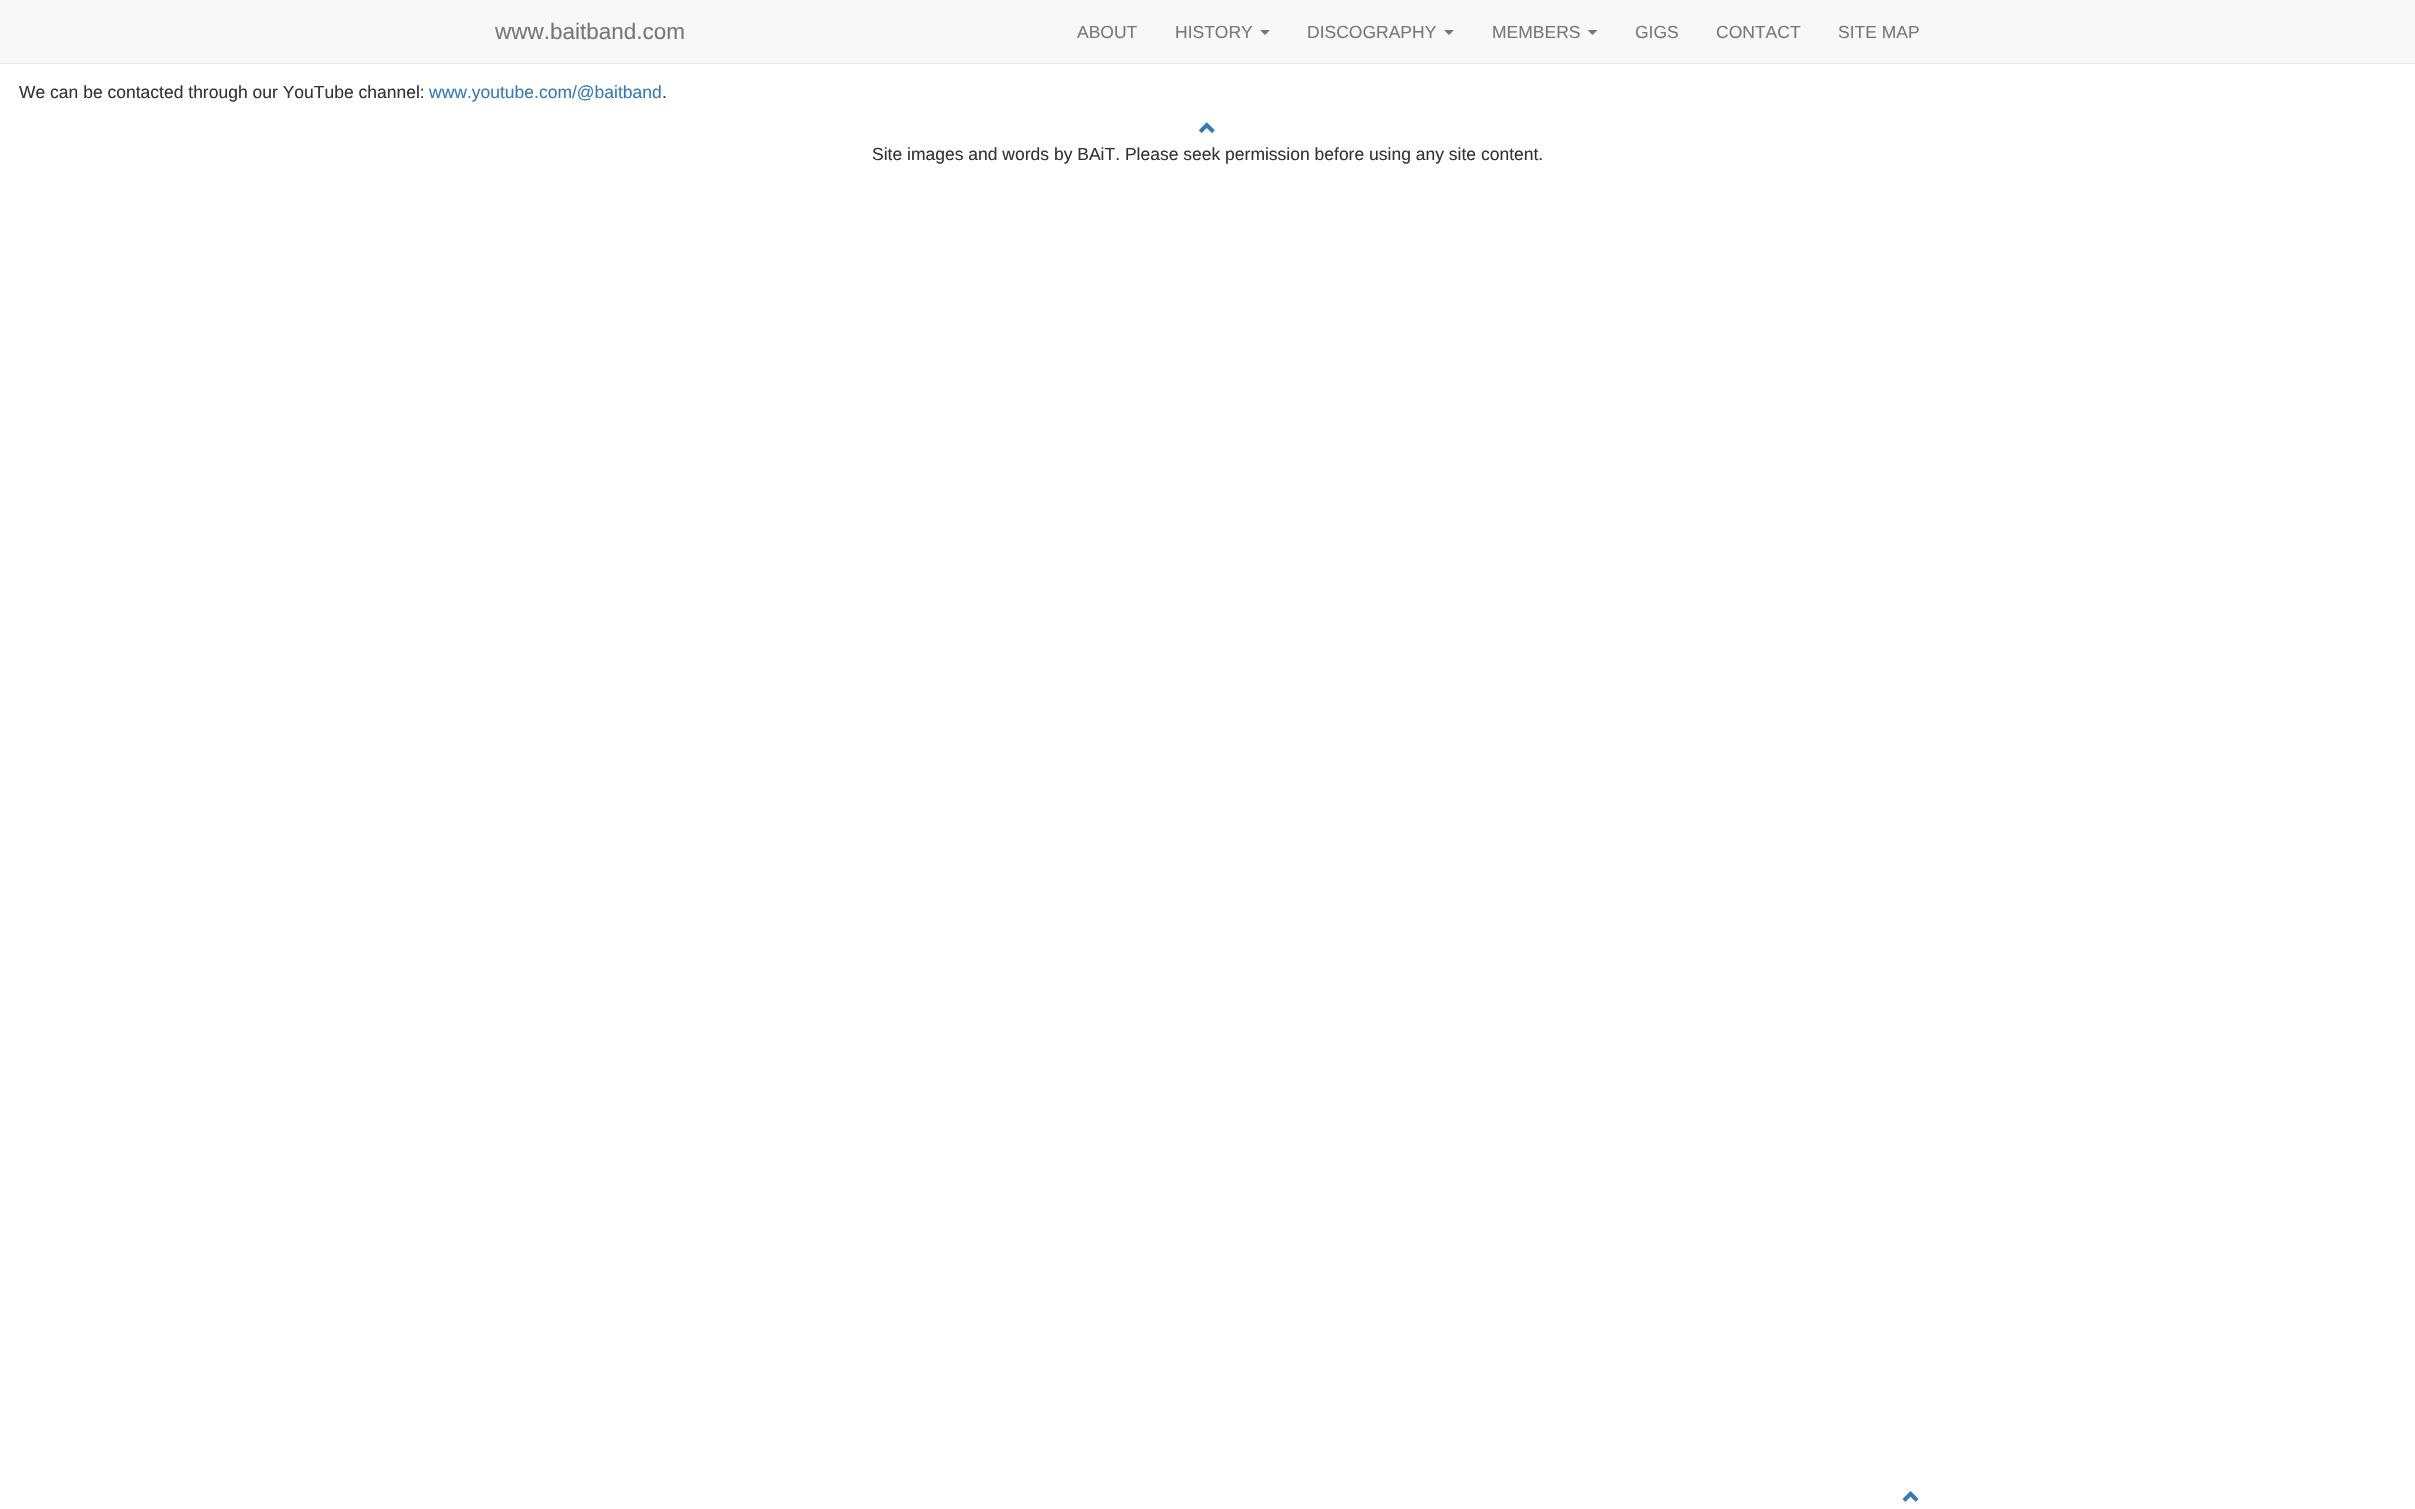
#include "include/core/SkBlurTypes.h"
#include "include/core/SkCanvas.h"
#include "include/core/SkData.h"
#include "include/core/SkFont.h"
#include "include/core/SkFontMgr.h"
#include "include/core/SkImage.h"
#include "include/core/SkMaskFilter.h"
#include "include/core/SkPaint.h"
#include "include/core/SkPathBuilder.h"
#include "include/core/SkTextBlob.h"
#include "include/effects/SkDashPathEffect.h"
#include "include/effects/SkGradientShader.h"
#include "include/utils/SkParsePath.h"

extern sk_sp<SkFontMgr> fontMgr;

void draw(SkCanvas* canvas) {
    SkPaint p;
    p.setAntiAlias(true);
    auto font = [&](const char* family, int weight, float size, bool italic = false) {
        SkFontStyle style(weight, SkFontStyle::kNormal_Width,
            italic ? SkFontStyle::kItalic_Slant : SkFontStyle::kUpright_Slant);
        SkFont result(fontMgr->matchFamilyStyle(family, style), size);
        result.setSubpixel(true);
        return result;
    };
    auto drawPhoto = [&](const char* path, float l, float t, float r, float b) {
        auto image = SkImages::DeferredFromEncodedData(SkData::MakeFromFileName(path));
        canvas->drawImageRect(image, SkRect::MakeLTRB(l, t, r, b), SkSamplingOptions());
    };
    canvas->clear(0xFFFFFFFF);
    p.setColor(0xFFF8F8F8);
    canvas->drawRect(SkRect::MakeLTRB(0, 0, 2415, 63), p);
    p.setColor(0xFFE7E7E7);
    canvas->drawRect(SkRect::MakeLTRB(0, 63, 2415, 64), p);
    auto font1 = font("Liberation Sans", 400, 22.5f);
    p.setColor(0xFF777777);
    canvas->drawString("www.baitband.com", 495, 39, font1, p);
    auto font2 = font("Liberation Sans", 400, 17.5f);
    canvas->drawString("ABOUT", 1077, 38, font2, p);
    canvas->drawString("HISTORY", 1175, 38, font2, p);
    canvas->drawPath(SkPathBuilder().moveTo(1260, 30).lineTo(1270, 30).lineTo(1265, 35).close().detach(), p);
    canvas->drawString("DISCOGRAPHY", 1307, 38, font2, p);
    canvas->drawPath(SkPathBuilder().moveTo(1444, 30).lineTo(1454, 30).lineTo(1449, 35).close().detach(), p);
    canvas->drawString("MEMBERS", 1492, 38, font2, p);
    canvas->drawPath(SkPathBuilder().moveTo(1587.5f, 30).lineTo(1597.5f, 30).lineTo(1592.5f, 35).close().detach(), p);
    {
        const struct { const char* s; float x, y; } items[] = {
            {"GIGS", 1635, 38},
            {"CONTACT", 1716, 38},
            {"SITE MAP", 1838, 38},
        };
        for (auto [s, x, y] : items) {
            canvas->drawString(s, x, y, font2, p);
        }
    }
    p.setColor(0xFF333333);
    canvas->drawString("We can be contacted through our YouTube channel:", 19, 98, font2, p);
    p.setColor(0xFF337AB7);
    canvas->drawString("www.youtube.com/@baitband", 429, 98, font2, p);
    p.setColor(0xFF333333);
    canvas->drawString(".", 662, 98, font2, p);
    drawPhoto("media/1.png", 1198, 122, 1215, 134);
    canvas->drawString("Site images and words by BAiT. Please seek permission before using any site content.", 872, 160, font2, p);
    drawPhoto("media/2.png", 1902, 1491, 1919, 1502);
}
